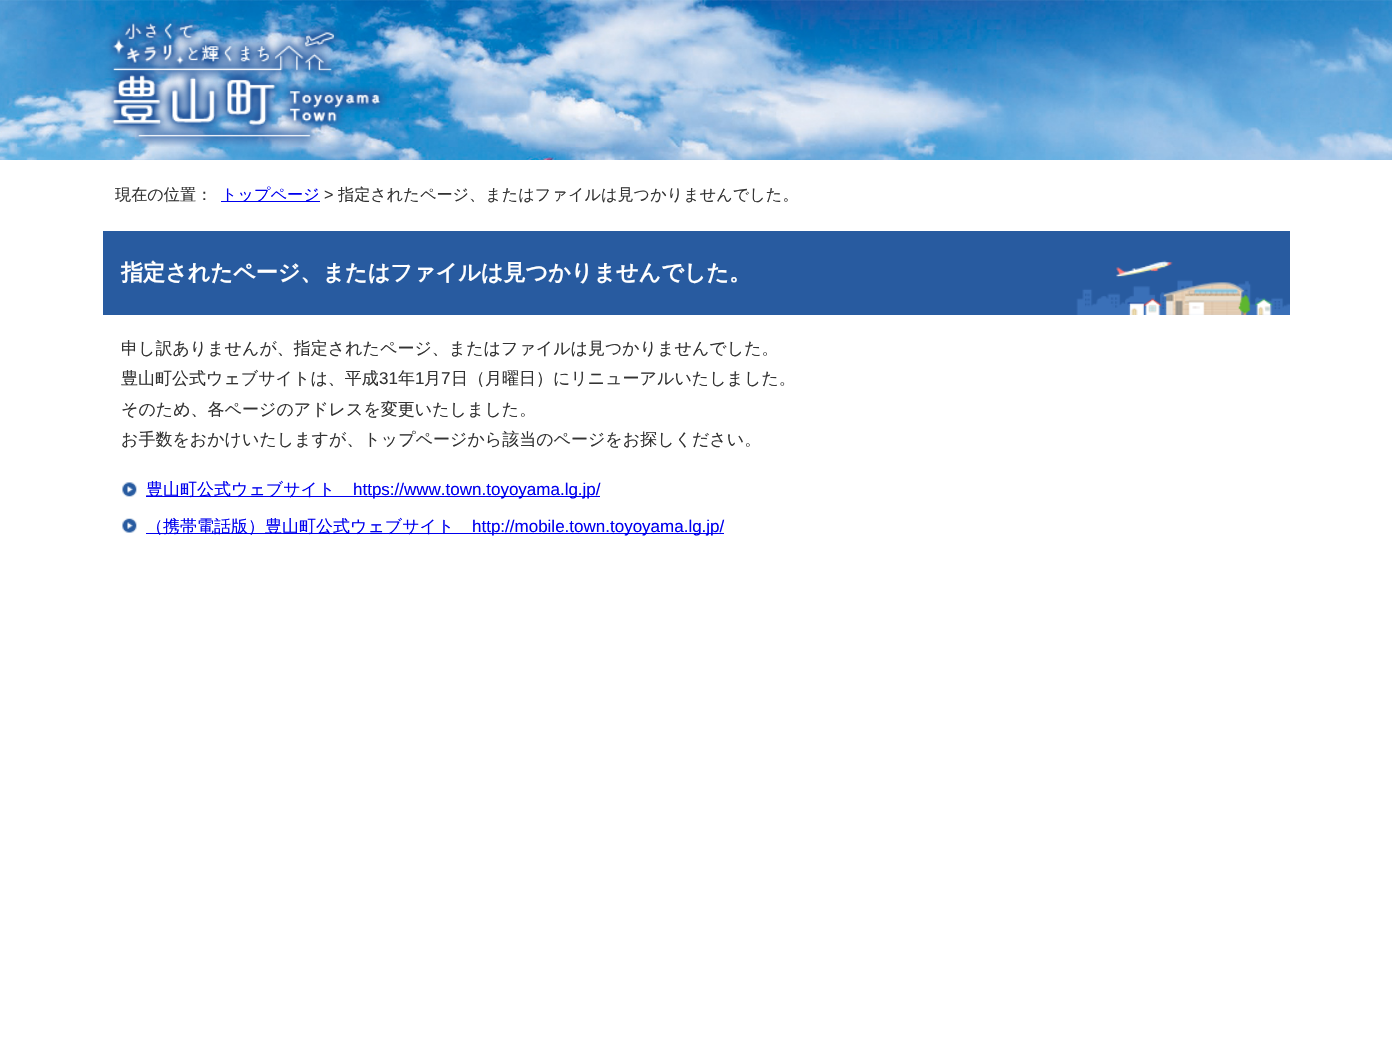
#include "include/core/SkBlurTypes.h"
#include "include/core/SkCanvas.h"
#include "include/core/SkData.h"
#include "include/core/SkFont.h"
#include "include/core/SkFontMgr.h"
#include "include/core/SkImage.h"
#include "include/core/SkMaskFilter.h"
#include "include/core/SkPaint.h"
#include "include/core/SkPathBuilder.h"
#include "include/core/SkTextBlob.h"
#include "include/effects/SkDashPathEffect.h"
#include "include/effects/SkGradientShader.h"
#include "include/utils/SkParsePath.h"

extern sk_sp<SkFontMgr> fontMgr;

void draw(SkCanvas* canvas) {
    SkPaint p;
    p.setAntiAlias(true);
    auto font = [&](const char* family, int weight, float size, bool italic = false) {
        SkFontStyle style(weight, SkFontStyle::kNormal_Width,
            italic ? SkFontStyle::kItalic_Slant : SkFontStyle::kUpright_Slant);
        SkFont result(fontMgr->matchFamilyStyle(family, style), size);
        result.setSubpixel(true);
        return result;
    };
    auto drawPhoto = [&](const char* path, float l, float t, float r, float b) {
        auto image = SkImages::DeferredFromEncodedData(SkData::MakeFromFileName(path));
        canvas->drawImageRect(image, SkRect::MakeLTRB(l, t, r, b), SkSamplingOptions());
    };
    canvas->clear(0xFFFFFFFF);
    drawPhoto("media/1.png", 0, 0, 1392, 160);
    drawPhoto("media/2.png", 104, 17, 387, 147);
    auto font1 = font("WenQuanYi Zen Hei", 500, 16.15f);
    p.setColor(0xFF333333);
    canvas->drawString("現在の位置：", 115, 200, font1, p);
    p.setColor(0xFF0000EE);
    canvas->drawRect(SkRect::MakeLTRB(221, 201, 320, 202), p);
    canvas->drawString("トップページ", 221, 200, font1, p);
    auto font2 = font("Liberation Sans", 400, 16.15f);
    p.setColor(0xFF333333);
    canvas->drawString(">", 324, 200, font2, p);
    canvas->drawString("指定されたページ、またはファイルは見つかりませんでした。", 338, 200, font1, p);
    p.setColor(0xFF285BA0);
    canvas->drawRect(SkRect::MakeLTRB(103, 231, 1290, 315), p);
    drawPhoto("media/3.png", 1076, 260, 1290, 315);
    auto font3 = font("WenQuanYi Zen Hei", 700, 22.1f);
    p.setColor(0xFFFFFFFF);
    canvas->drawString("指定されたページ、またはファイルは見つかりませんでした。", 121, 280, font3, p);
    auto font4 = font("WenQuanYi Zen Hei", 500, 17);
    p.setColor(0xFF333333);
    canvas->drawString("申し訳ありませんが、指定されたページ、またはファイルは見つかりませんでした。", 121, 354, font4, p);
    canvas->drawString("豊山町公式ウェブサイトは、平成", 121, 384, font4, p);
    auto font5 = font("Liberation Sans", 400, 17);
    canvas->drawString("31", 379, 384, font5, p);
    canvas->drawString("年", 398, 384, font4, p);
    canvas->drawString("1", 415, 384, font5, p);
    canvas->drawString("月", 424, 384, font4, p);
    canvas->drawString("7", 441, 384, font5, p);
    {
        const struct { const char* s; float x, y; } items[] = {
            {"日（月曜日）にリニューアルいたしました。", 451, 384},
            {"そのため、各ページのアドレスを変更いたしました。", 121, 415},
            {"お手数をおかけいたしますが、トップページから該当のページをお探しください。", 121, 445},
        };
        for (auto [s, x, y] : items) {
            canvas->drawString(s, x, y, font4, p);
        }
    }
    drawPhoto("media/4.png", 122, 482, 137, 497);
    p.setColor(0xFF0000EE);
    canvas->drawRect(SkRect::MakeLTRB(146, 496, 600, 497), p);
    canvas->drawString("豊山町公式ウェブサイト", 146, 495, font4, p);
    canvas->drawString("https://www.town.toyoyama.lg.jp/", 353, 495, font5, p);
    drawPhoto("media/5.png", 122, 518, 137, 533);
    canvas->drawRect(SkRect::MakeLTRB(146, 533, 724, 534), p);
    canvas->drawString("（携帯電話版）豊山町公式ウェブサイト", 146, 532, font4, p);
    canvas->drawString("http://mobile.town.toyoyama.lg.jp/", 472, 532, font5, p);
}
